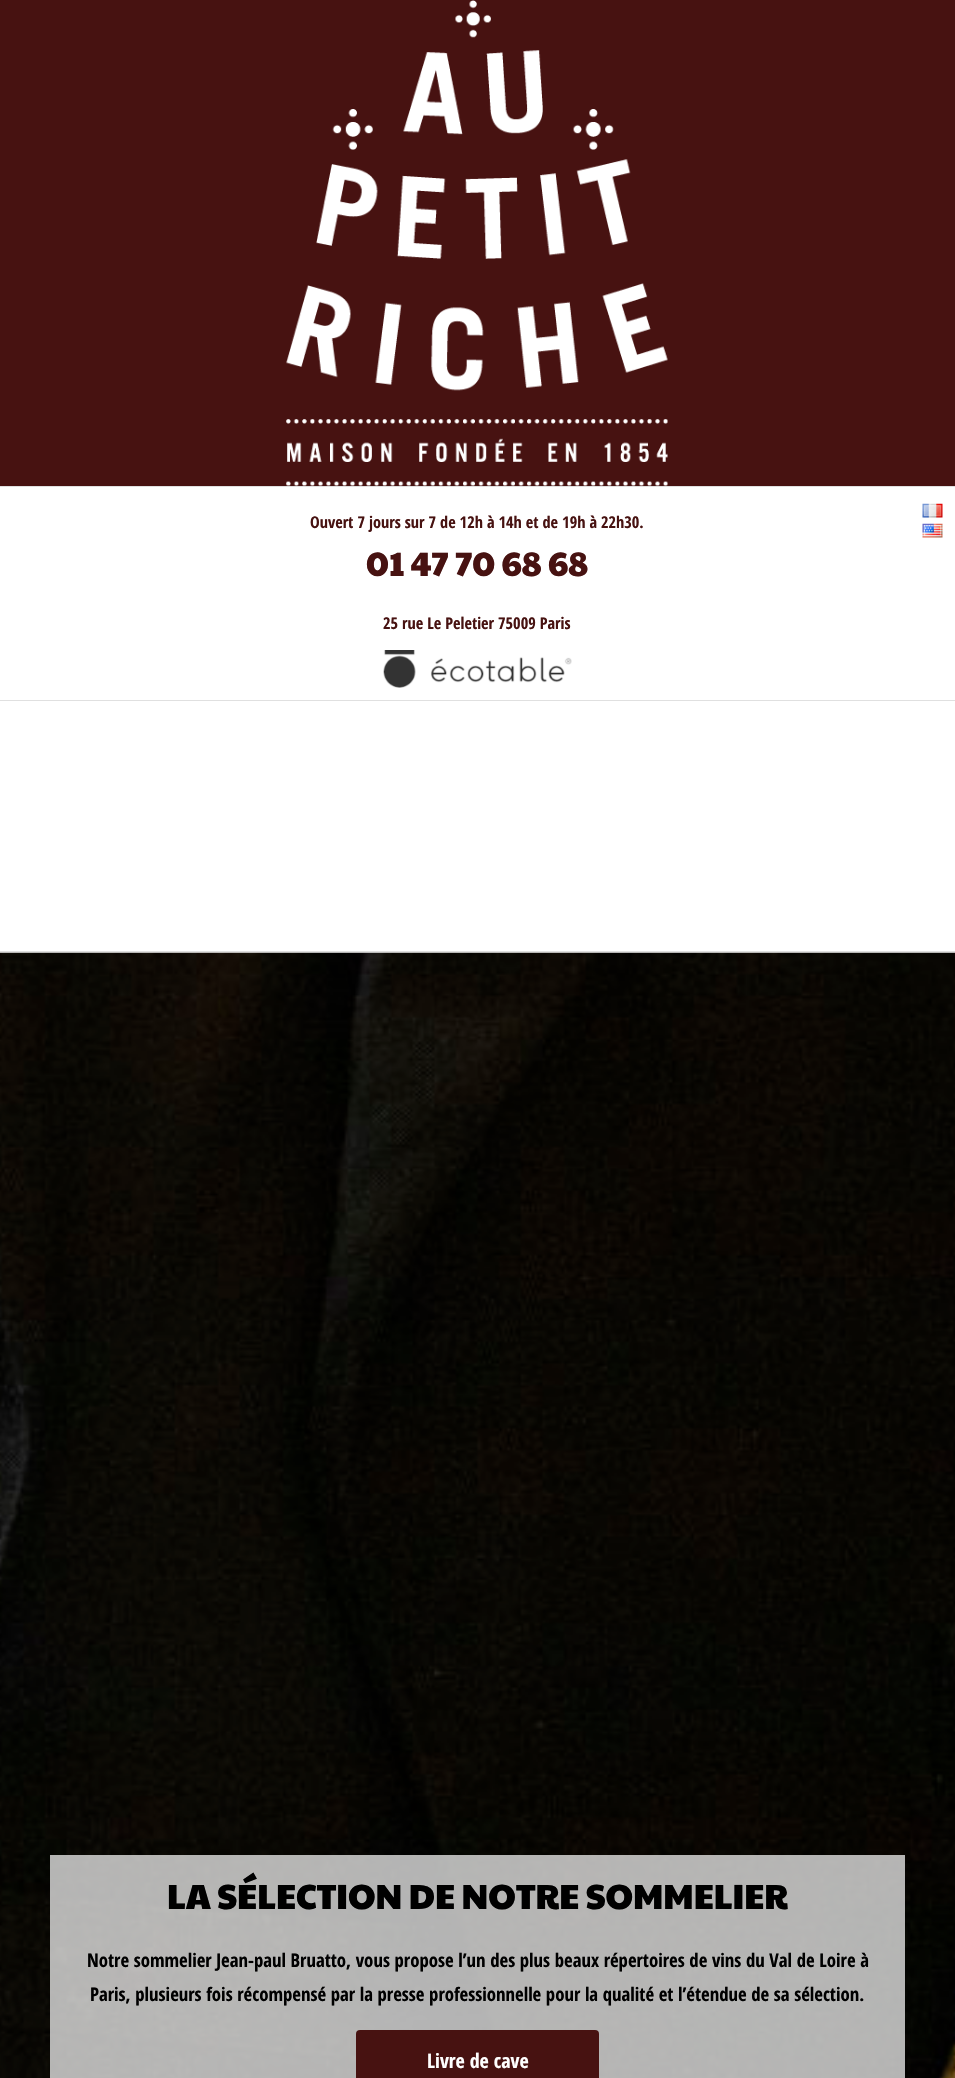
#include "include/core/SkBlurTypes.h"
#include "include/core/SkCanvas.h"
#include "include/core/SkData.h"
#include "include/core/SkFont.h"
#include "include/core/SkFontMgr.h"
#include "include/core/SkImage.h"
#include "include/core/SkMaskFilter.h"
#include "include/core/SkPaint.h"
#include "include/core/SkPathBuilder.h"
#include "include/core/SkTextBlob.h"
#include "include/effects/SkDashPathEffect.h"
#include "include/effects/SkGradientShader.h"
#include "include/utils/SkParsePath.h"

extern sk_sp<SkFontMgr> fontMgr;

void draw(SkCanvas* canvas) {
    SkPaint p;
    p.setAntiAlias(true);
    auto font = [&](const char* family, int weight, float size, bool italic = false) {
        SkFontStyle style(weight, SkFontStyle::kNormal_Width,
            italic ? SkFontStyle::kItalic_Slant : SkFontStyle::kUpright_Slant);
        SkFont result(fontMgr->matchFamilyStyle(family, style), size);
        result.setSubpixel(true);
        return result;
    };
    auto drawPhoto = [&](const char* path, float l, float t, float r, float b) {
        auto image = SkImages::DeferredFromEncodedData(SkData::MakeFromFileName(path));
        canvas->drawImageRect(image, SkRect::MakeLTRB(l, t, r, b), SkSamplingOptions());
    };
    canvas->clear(0xFFFFFFFF);
    drawPhoto("media/5.png", 0, 952, 955, 2078);
    p.setColor(0x6BFFFFFF);
    canvas->drawRect(SkRect::MakeLTRB(0, 952, 955, 953), p);
    p.setColor(0xFF471211);
    canvas->drawRect(SkRect::MakeLTRB(0, 0, 955, 486), p);
    drawPhoto("media/1.png", 286, 0, 668, 486);
    p.setColor(0xFFE0E0E0);
    canvas->drawRect(SkRect::MakeLTRB(0, 486, 955, 487), p);
    auto font1 = font("Open Sans Condensed", 700, 16.25f);
    p.setColor(0xFF471211);
    canvas->drawString("Ouvert 7 jours sur 7 de 12h à 14h et de 19h à 22h30.", 310, 528, font1, p);
    auto font2 = font("Paytone One", 400, 33.75f);
    canvas->drawString("01 47 70 68 68", 366, 576, font2, p);
    canvas->drawString("25 rue Le Peletier 75009 Paris", 383, 629, font1, p);
    drawPhoto("media/2.png", 383, 650, 572, 688);
    drawPhoto("media/3.png", 922, 503, 943, 518);
    drawPhoto("media/4.png", 922, 523, 943, 538);
    {
        const struct { float l, t, r, b; SkColor color; } items[] = {
            {0, 700, 955, 701, 0xFFE0E0E0},
            {0, 951, 955, 952, 0xFFE0E0E0},
            {50, 1855, 905, 2078, 0xB3FFFFFF},
        };
        for (auto [l, t, r, b, color] : items) {
            p.setColor(color);
            canvas->drawRect(SkRect::MakeLTRB(l, t, r, b), p);
        }
    }
    auto font3 = font("Paytone One", 400, 35);
    p.setColor(0xFF000000);
    canvas->drawString("LA SÉLECTION DE NOTRE SOMMELIER", 167, 1909, font3, p);
    auto font4 = font("Open Sans Condensed", 700, 18.75f);
    canvas->drawString("Notre sommelier Jean-paul Bruatto, vous propose l’un des plus beaux répertoires de vins du Val de Loire à", 87, 1967, font4, p);
    canvas->drawString("Paris, plusieurs fois récompensé par la presse professionnelle pour la qualité et l’étendue de sa sélection.", 90, 2001, font4, p);
    p.setColor(0xFF471211);
    canvas->drawRoundRect(SkRect::MakeLTRB(356, 2030, 599, 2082), 4, 4, p);
    auto font5 = font("Open Sans Condensed", 700, 20);
    p.setColor(0xFFFFFFFF);
    canvas->drawString("Livre de cave", 427, 2068, font5, p);
}
